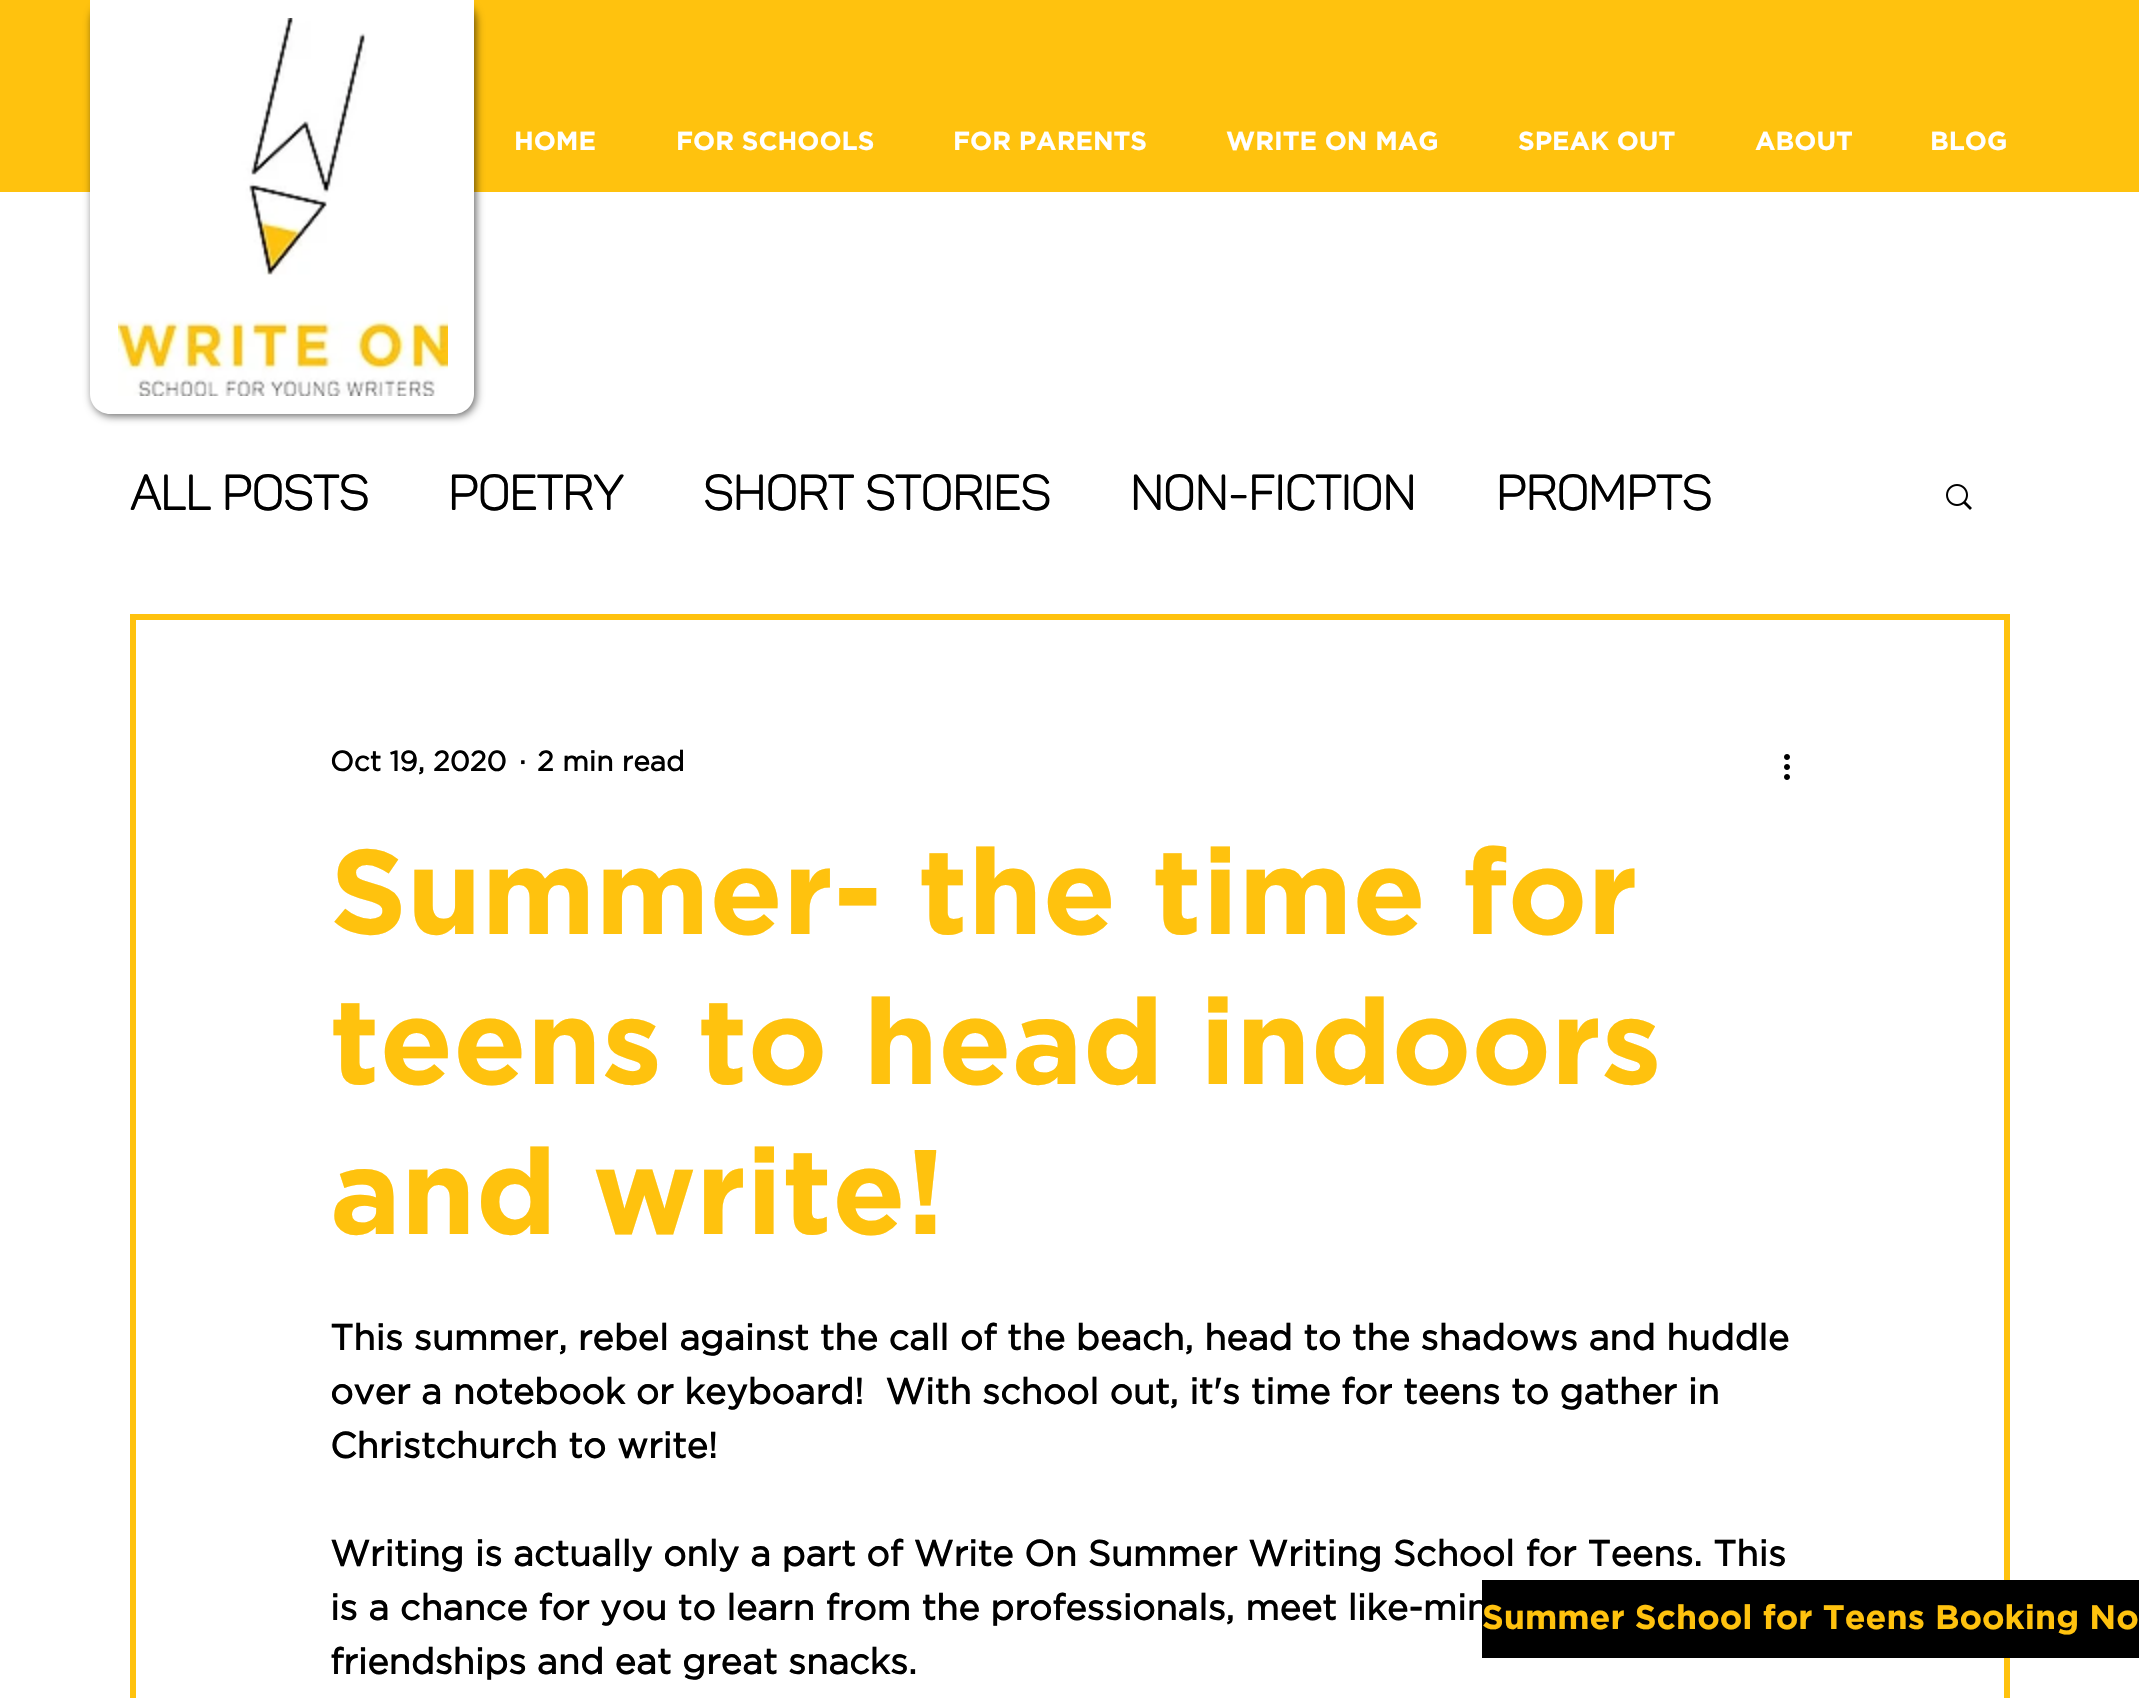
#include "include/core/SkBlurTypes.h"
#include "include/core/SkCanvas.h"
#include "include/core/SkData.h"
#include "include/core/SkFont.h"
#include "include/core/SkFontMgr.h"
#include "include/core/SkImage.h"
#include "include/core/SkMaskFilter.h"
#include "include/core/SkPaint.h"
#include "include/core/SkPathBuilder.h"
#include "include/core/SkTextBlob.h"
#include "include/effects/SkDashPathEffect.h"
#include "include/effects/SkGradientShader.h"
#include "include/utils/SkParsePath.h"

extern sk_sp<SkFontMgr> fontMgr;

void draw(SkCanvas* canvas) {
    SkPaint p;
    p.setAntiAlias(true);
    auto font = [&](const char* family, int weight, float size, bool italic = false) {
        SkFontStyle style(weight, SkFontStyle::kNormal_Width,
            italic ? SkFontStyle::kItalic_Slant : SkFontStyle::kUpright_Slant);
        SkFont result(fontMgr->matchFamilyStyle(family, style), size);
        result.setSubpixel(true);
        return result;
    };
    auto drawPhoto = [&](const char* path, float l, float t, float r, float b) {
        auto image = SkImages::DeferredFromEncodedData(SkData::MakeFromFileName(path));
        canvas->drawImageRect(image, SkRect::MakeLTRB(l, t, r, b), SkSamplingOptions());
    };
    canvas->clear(0xFFFFFFFF);
    p.setColor(0xFFFFC20E);
    canvas->drawRect(SkRect::MakeLTRB(0, 0, 2139, 192), p);
    p.setColor(0x99000000);
    p.setMaskFilter(SkMaskFilter::MakeBlur(kNormal_SkBlurStyle, 4));
    canvas->drawRoundRect(SkRect::MakeLTRB(92, 2, 476, 416), 20, 20, p);
    p.setMaskFilter(nullptr);
    p.setColor(0xFFFFFFFF);
    canvas->drawPath(SkPathBuilder().moveTo(90, 0).lineTo(474, 0).lineTo(474, 394).cubicTo(474, 405, 465, 414, 454, 414).lineTo(110, 414).cubicTo(99, 414, 90, 405, 90, 394).close().detach(), p);
    drawPhoto("media/1.png", 118, 18, 448, 396);
    auto font1 = font("Gotham", 700, 26);
    {
        const struct { const char* s; float x, y; } items[] = {
            {"HOME", 514, 150},
            {"FOR SCHOOLS", 676, 150},
            {"FOR PARENTS", 953, 150},
            {"WRITE ON MAG", 1226, 150},
            {"SPEAK OUT", 1518, 150},
            {"ABOUT", 1755, 150},
            {"BLOG", 1930, 150},
        };
        for (auto [s, x, y] : items) {
            canvas->drawString(s, x, y, font1, p);
        }
    }
    auto font2 = font("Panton", 700, 48);
    p.setColor(0xFF000000);
    {
        const struct { const char* s; float x, y; } items[] = {
            {"All Posts", 130, 510},
            {"Poetry", 448, 510},
            {"Short Stories", 703, 510},
            {"Non-fiction", 1130, 510},
            {"Prompts", 1496, 510},
        };
        for (auto [s, x, y] : items) {
            canvas->drawString(s, x, y, font2, p);
        }
    }
    drawPhoto("media/2.png", 1946, 484, 1972, 510);
    p.setStyle(SkPaint::kStroke_Style);
    p.setStrokeWidth(6);
    p.setColor(0xFFFFC20E);
    canvas->drawRect(SkRect::MakeLTRB(133, 617, 2007, 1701), p);
    auto font3 = font("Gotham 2", 700, 28);
    p.setStyle(SkPaint::kFill_Style);
    p.setColor(0xFF000000);
    {
        const struct { const char* s; float x, y; } items[] = {
            {"Oct 19, 2020", 330, 771},
            {"·", 519, 771},
            {"2 min read", 537, 771},
        };
        for (auto [s, x, y] : items) {
            canvas->drawString(s, x, y, font3, p);
        }
    }
    drawPhoto("media/3.png", 1784, 754, 1790, 780);
    auto font4 = font("Gotham", 700, 120);
    p.setColor(0xFFFFC20E);
    {
        const struct { const char* s; float x, y; } items[] = {
            {"Summer- the time for", 330, 934},
            {"teens to head indoors", 330, 1084},
            {"and write!", 330, 1234},
        };
        for (auto [s, x, y] : items) {
            canvas->drawString(s, x, y, font4, p);
        }
    }
    auto font5 = font("Gotham 2", 700, 36);
    p.setColor(0xFF000000);
    {
        const struct { const char* s; float x, y; } items[] = {
            {"This summer, rebel against the call of the beach, head to the shadows and huddle", 330, 1350},
            {"over a notebook or keyboard!  With school out, it's time for teens to gather in", 330, 1404},
            {"Christchurch to write!", 330, 1458},
            {"Writing is actually only a part of Write On Summer Writing School for Teens. This", 330, 1566},
            {"is a chance for you to learn from the professionals, meet like-min", 330, 1620},
            {"friendships and eat great snacks.", 330, 1674},
        };
        for (auto [s, x, y] : items) {
            canvas->drawString(s, x, y, font5, p);
        }
    }
    canvas->drawRect(SkRect::MakeLTRB(1482, 1580, 2139, 1658), p);
    auto font6 = font("Gotham", 700, 34);
    p.setColor(0xFFFFC20E);
    canvas->drawString("Summer School for Teens Booking No", 1482, 1629, font6, p);
}
